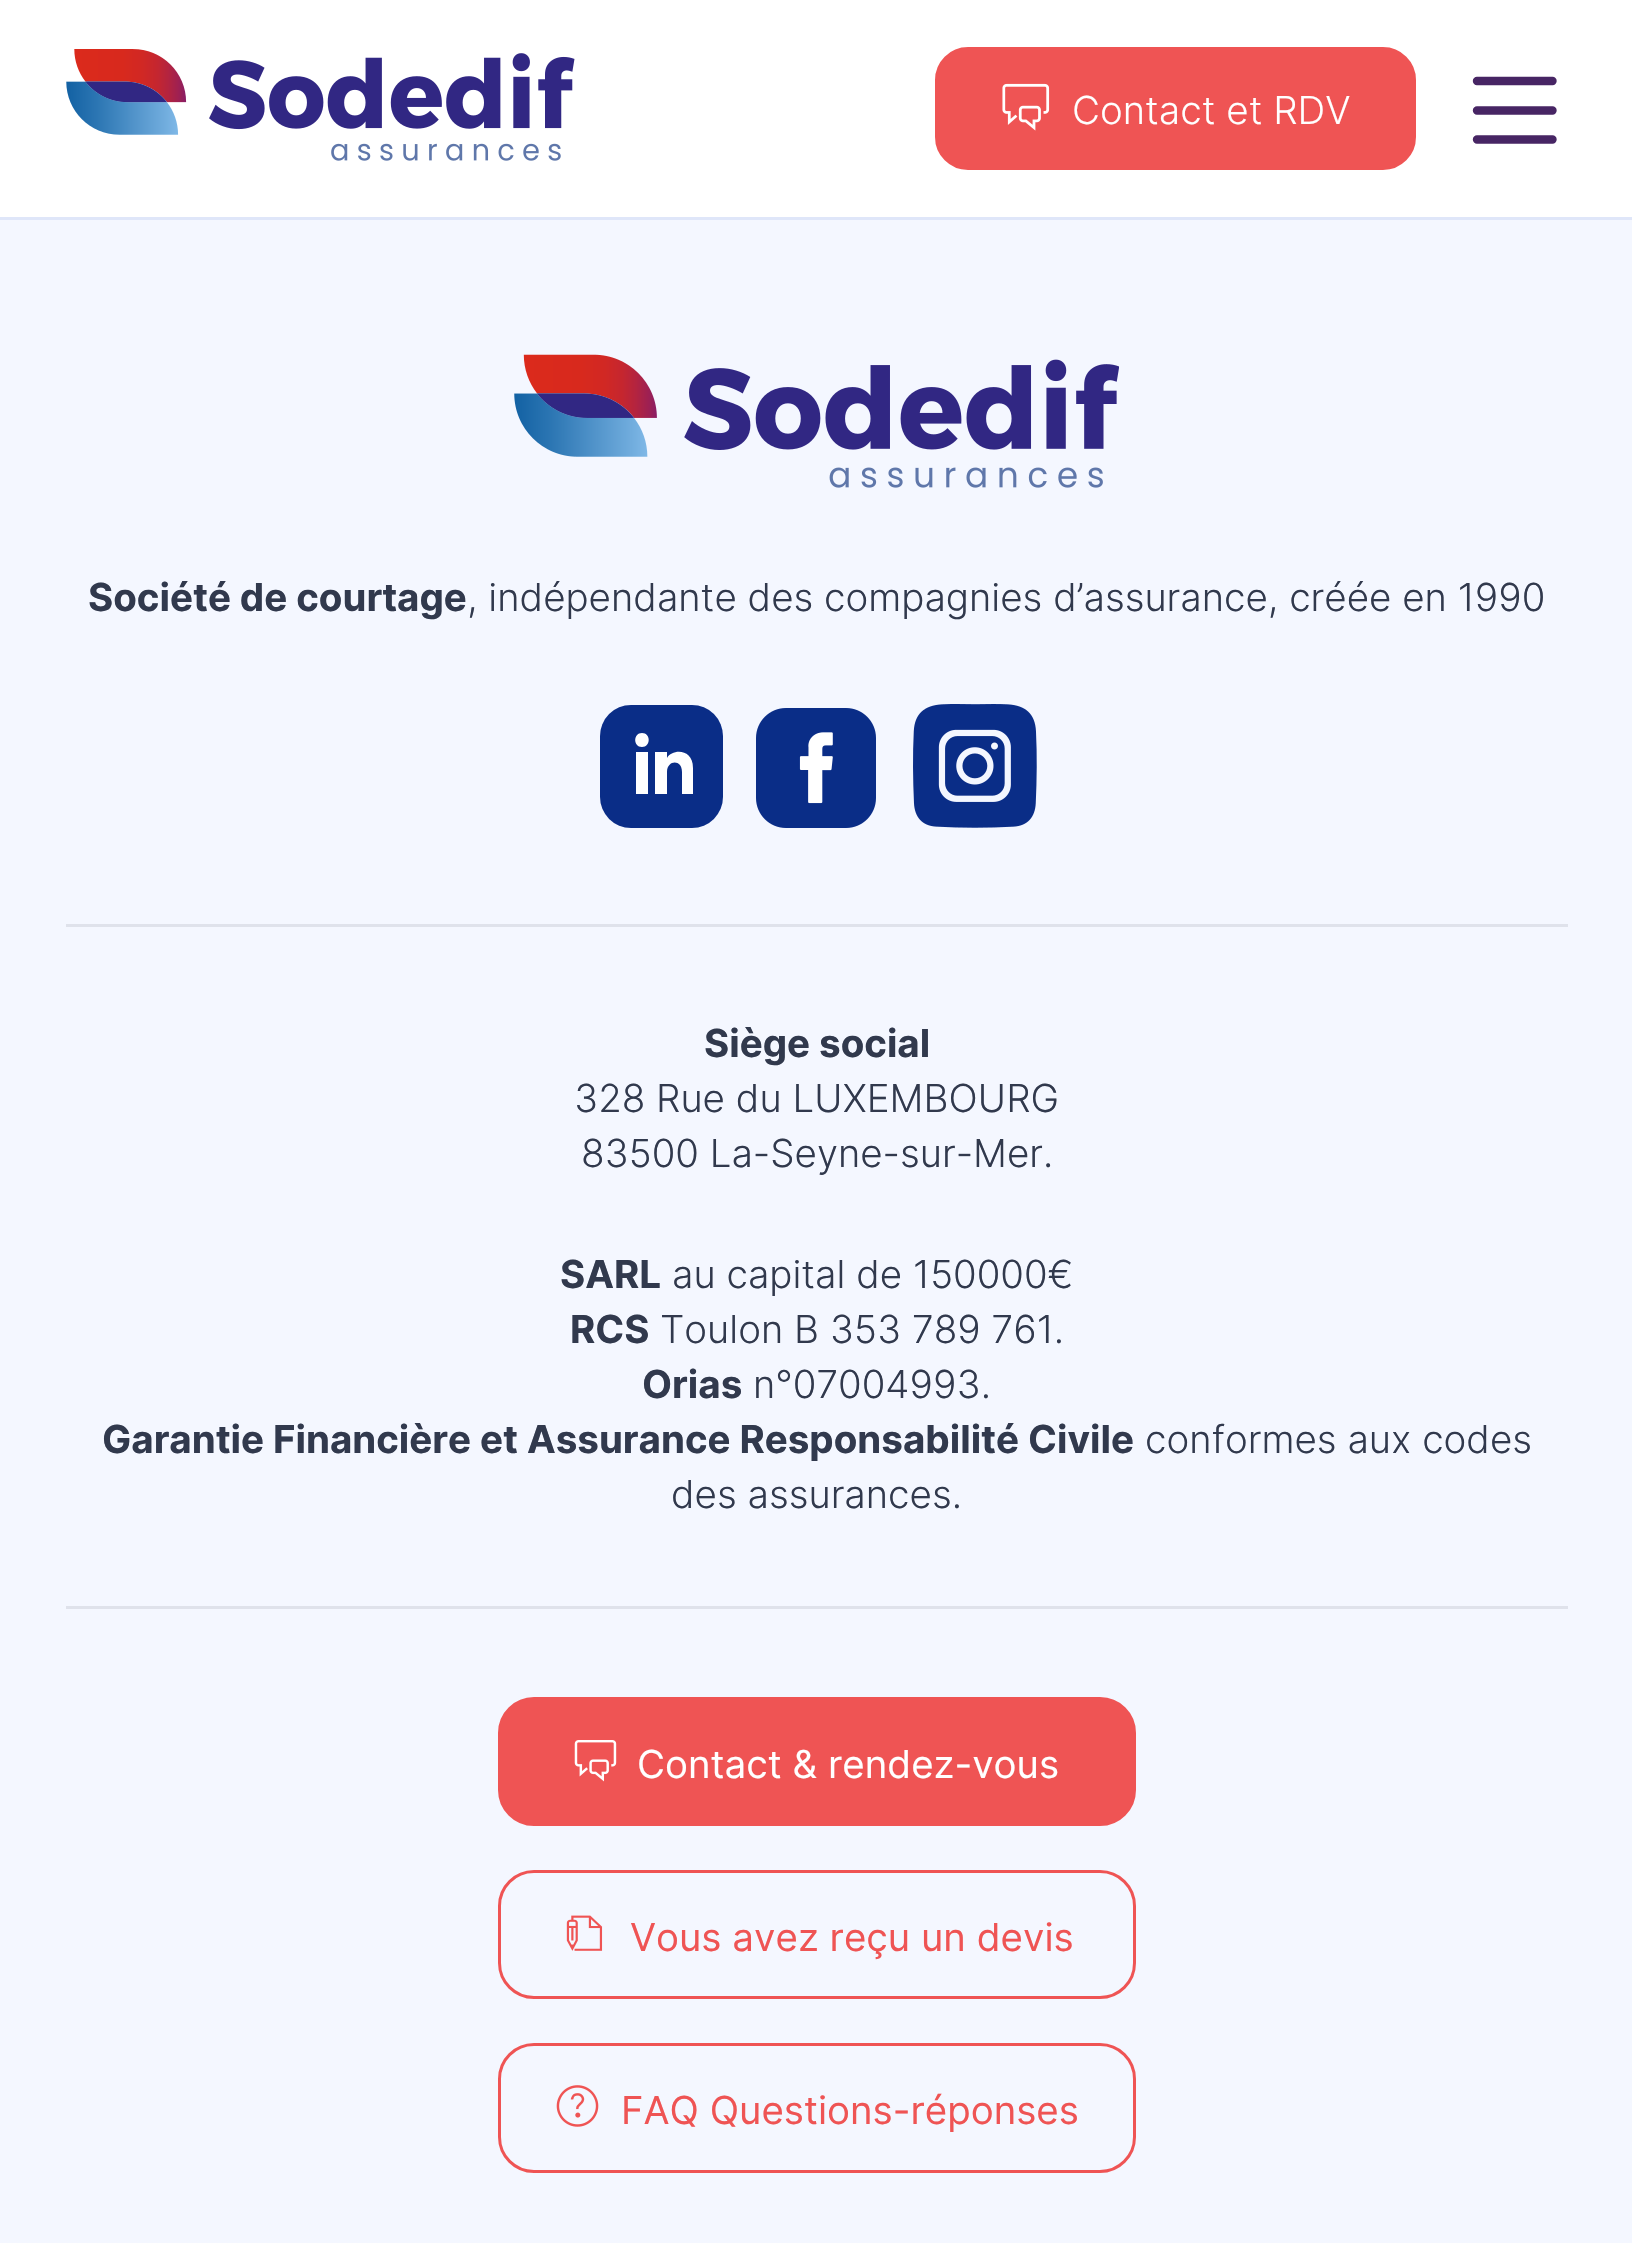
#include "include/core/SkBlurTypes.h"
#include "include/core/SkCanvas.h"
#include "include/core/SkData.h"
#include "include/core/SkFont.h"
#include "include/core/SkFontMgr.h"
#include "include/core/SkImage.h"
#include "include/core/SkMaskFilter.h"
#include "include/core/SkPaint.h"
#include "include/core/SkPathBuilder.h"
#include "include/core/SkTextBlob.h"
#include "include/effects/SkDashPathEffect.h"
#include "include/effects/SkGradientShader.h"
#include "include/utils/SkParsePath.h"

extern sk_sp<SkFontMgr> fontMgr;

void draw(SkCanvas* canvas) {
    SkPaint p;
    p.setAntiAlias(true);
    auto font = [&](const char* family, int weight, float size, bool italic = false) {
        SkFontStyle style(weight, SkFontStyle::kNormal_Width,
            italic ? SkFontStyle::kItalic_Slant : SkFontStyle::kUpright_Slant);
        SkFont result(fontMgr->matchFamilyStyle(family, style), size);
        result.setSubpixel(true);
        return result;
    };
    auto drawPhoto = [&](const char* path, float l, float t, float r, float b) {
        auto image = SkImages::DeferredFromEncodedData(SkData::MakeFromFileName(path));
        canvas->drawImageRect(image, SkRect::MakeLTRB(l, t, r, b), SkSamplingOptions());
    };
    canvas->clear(0xFFFFFFFF);
    p.setColor(0xFFDFE6F9);
    canvas->drawRect(SkRect::MakeLTRB(0, 217, 1632, 220), p);
    drawPhoto("media/1.png", 66, 49, 575, 161);
    p.setColor(0xFFEF5454);
    canvas->drawRoundRect(SkRect::MakeLTRB(933.5f, 45.5f, 1417.5f, 171.5f), 34.5f, 34.5f, p);
    p.setStyle(SkPaint::kStroke_Style);
    p.setStrokeWidth(3);
    p.setColor(0xFFFFFFFF);
    canvas->drawRoundRect(SkRect::MakeLTRB(933.5f, 45.5f, 1417.5f, 171.5f), 34.5f, 34.5f, p);
    drawPhoto("media/2.png", 1002, 83, 1050, 131);
    auto font1 = font("Inter", 300, 38.5f);
    p.setStyle(SkPaint::kFill_Style);
    canvas->drawString("Contact et RDV", 1072, 124, font1, p);
    p.setStyle(SkPaint::kStroke_Style);
    p.setStrokeWidth(8.4f);
    p.setStrokeCap(SkPaint::kRound_Cap);
    p.setStrokeJoin(SkPaint::kRound_Join);
    p.setColor(0xFF472564);
    canvas->drawPath(SkPathBuilder().moveTo(1477, 81).lineTo(1552.5f, 81).moveTo(1477, 110.5f).lineTo(1552.5f, 110.5f).moveTo(1477, 139.5f).lineTo(1552.5f, 139.5f).detach(), p);
    p.setStyle(SkPaint::kFill_Style);
    p.setColor(0xFFF4F7FF);
    canvas->drawRect(SkRect::MakeLTRB(0, 220, 1632, 2243), p);
    drawPhoto("media/3.png", 514, 354, 1119, 488);
    auto font2 = font("Inter", 700, 38.5f);
    p.setColor(0xFF31394D);
    canvas->drawString("Société de courtage", 88, 611, font2, p);
    canvas->drawString(", indépendante des compagnies d’assurance, créée en 1990", 467, 611, font1, p);
    p.setColor(0xFF0A2D87);
    canvas->drawRoundRect(SkRect::MakeLTRB(600, 705, 723, 828), 31, 31, p);
    p.setColor(0xFFFFFFFF);
    canvas->drawPath(SkPathBuilder().moveTo(648, 794).lineTo(636, 794).lineTo(636, 752).lineTo(648, 752).close().moveTo(642, 747).cubicTo(633, 747, 633, 733, 642, 733).cubicTo(651, 733, 651, 747, 642, 747).close().moveTo(693, 794).lineTo(682, 794).lineTo(682, 772).cubicTo(682, 759, 667, 760, 667, 772).lineTo(667, 794).lineTo(655, 794).lineTo(655, 752).lineTo(667, 752).lineTo(667, 758).cubicTo(672, 749, 693, 748, 693, 768).close().detach(), p);
    drawPhoto("media/4.png", 756, 708, 876, 828);
    drawPhoto("media/5.png", 913, 704, 1037, 828);
    p.setColor(0xFFDFE2EB);
    canvas->drawRect(SkRect::MakeLTRB(66, 924, 1568, 927), p);
    p.setColor(0xFF31394D);
    canvas->drawString("Siège social", 704, 1057, font2, p);
    canvas->drawString("328 Rue du LUXEMBOURG", 574, 1112, font1, p);
    canvas->drawString("83500 La-Seyne-sur-Mer.", 581, 1167, font1, p);
    canvas->drawString("SARL", 560, 1288, font2, p);
    canvas->drawString("au capital de 150000€", 672, 1288, font1, p);
    canvas->drawString("RCS", 570, 1343, font2, p);
    canvas->drawString("Toulon B 353 789 761.", 660, 1343, font1, p);
    canvas->drawString("Orias", 642, 1398, font2, p);
    canvas->drawString("n°07004993.", 753, 1398, font1, p);
    canvas->drawString("Garantie Financière et Assurance Responsabilité Civile", 102, 1453, font2, p);
    canvas->drawString("conformes aux codes", 1145, 1453, font1, p);
    canvas->drawString("des assurances.", 671, 1508, font1, p);
    p.setColor(0xFFDFE2EB);
    canvas->drawRect(SkRect::MakeLTRB(66, 1606, 1568, 1609), p);
    p.setColor(0xFFEF5454);
    canvas->drawRoundRect(SkRect::MakeLTRB(499.5f, 1698.5f, 1134.5f, 1824.5f), 34.5f, 34.5f, p);
    p.setStyle(SkPaint::kStroke_Style);
    p.setStrokeWidth(3);
    p.setStrokeCap(SkPaint::kButt_Cap);
    p.setStrokeJoin(SkPaint::kMiter_Join);
    canvas->drawRoundRect(SkRect::MakeLTRB(499.5f, 1698.5f, 1134.5f, 1824.5f), 34.5f, 34.5f, p);
    drawPhoto("media/6.png", 574, 1740, 617, 1782);
    auto font3 = font("Inter", 400, 38.5f);
    p.setStyle(SkPaint::kFill_Style);
    p.setColor(0xFFFFFFFF);
    canvas->drawString("Contact & rendez-vous", 637, 1778, font3, p);
    p.setStyle(SkPaint::kStroke_Style);
    p.setColor(0xFFEF5454);
    canvas->drawRoundRect(SkRect::MakeLTRB(499.5f, 1871.5f, 1134.5f, 1997.5f), 34.5f, 34.5f, p);
    drawPhoto("media/7.png", 566, 1915, 603, 1951);
    p.setStyle(SkPaint::kFill_Style);
    canvas->drawString("Vous avez reçu un devis", 630, 1951, font3, p);
    p.setStyle(SkPaint::kStroke_Style);
    canvas->drawRoundRect(SkRect::MakeLTRB(499.5f, 2044.5f, 1134.5f, 2171.5f), 34.5f, 34.5f, p);
    drawPhoto("media/8.png", 556, 2085, 599, 2127);
    p.setStyle(SkPaint::kFill_Style);
    canvas->drawString("FAQ Questions-réponses", 621, 2124, font3, p);
}
